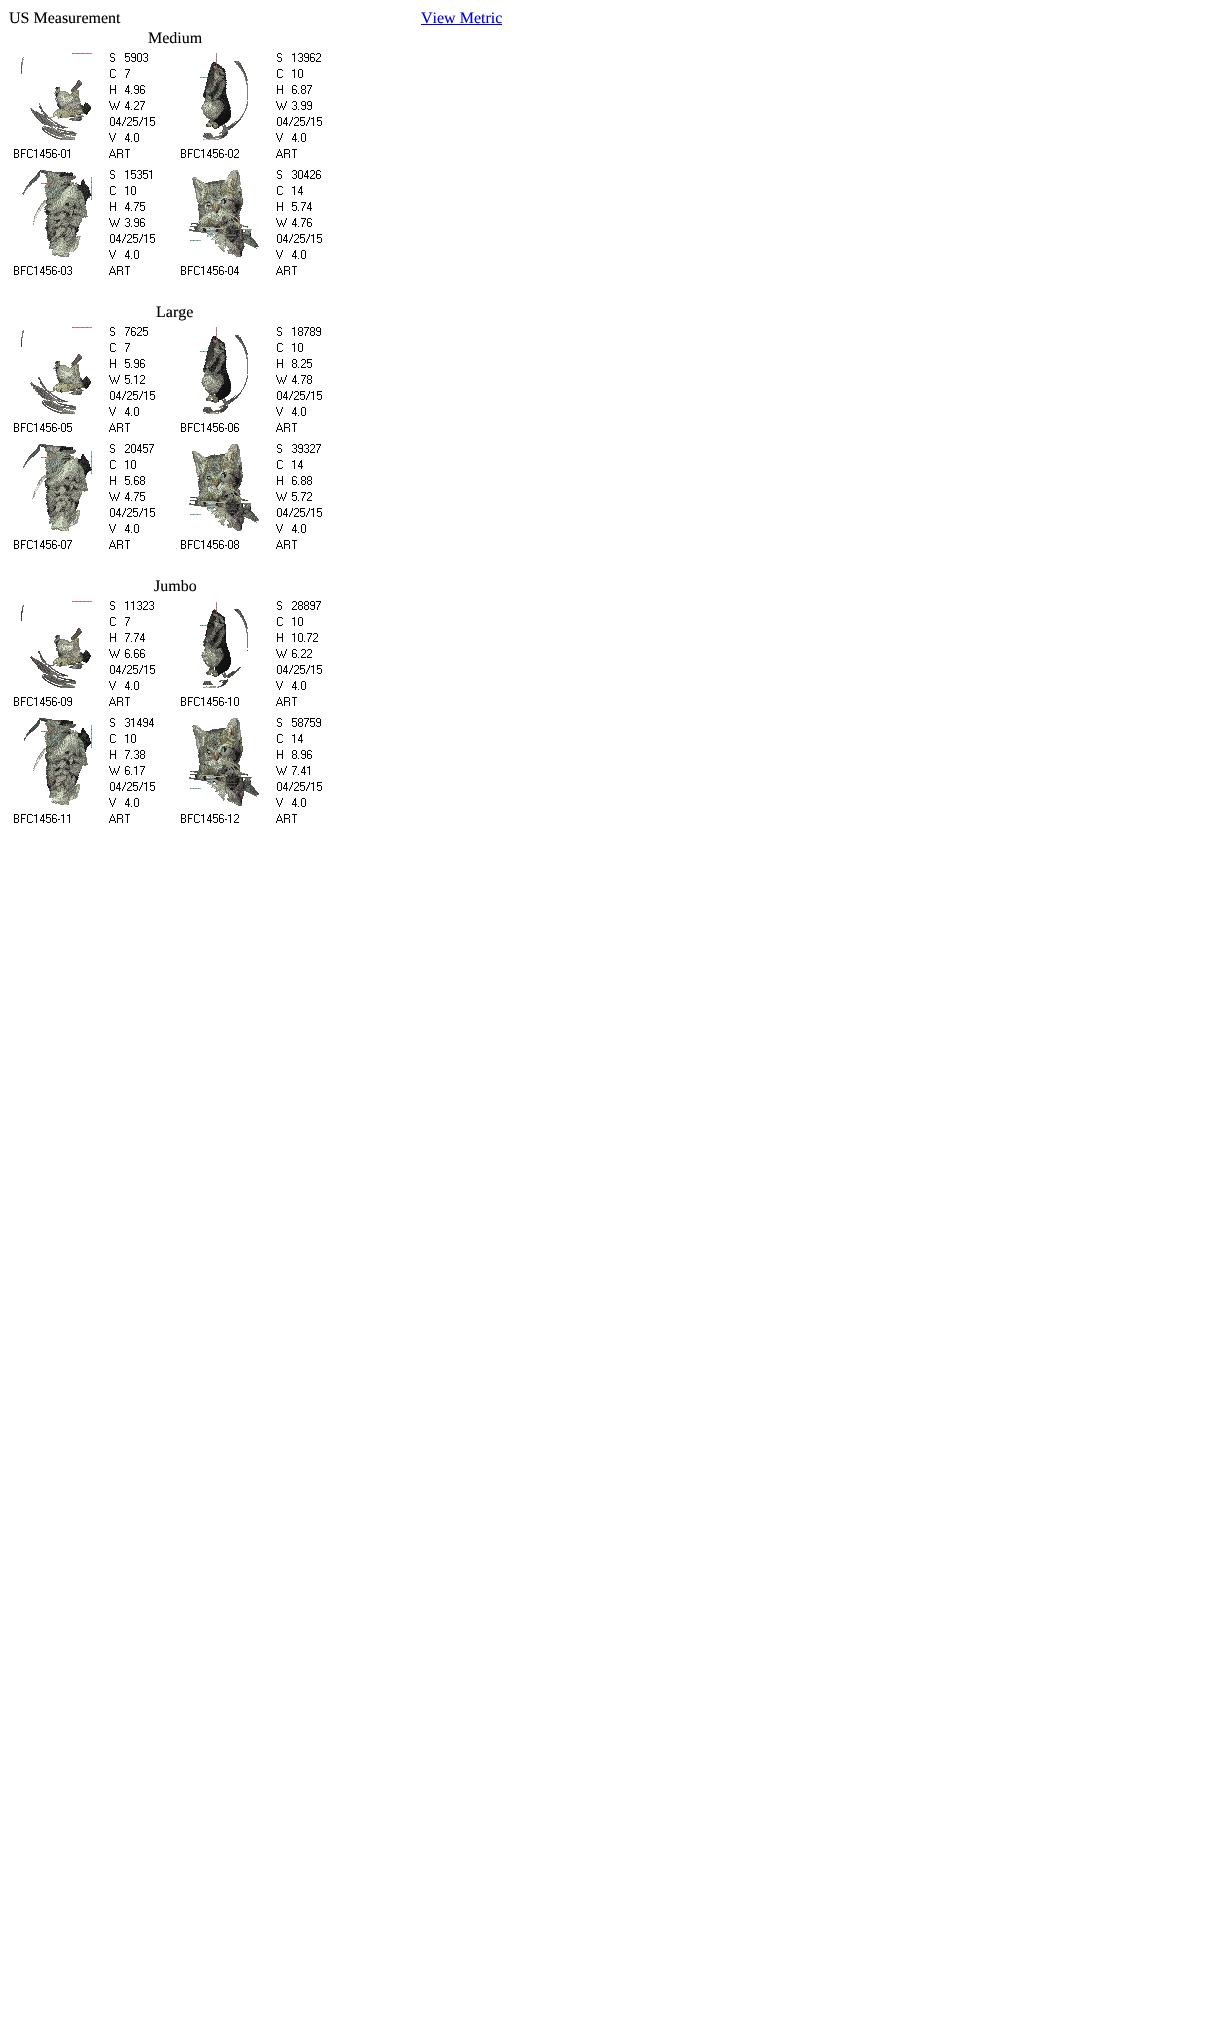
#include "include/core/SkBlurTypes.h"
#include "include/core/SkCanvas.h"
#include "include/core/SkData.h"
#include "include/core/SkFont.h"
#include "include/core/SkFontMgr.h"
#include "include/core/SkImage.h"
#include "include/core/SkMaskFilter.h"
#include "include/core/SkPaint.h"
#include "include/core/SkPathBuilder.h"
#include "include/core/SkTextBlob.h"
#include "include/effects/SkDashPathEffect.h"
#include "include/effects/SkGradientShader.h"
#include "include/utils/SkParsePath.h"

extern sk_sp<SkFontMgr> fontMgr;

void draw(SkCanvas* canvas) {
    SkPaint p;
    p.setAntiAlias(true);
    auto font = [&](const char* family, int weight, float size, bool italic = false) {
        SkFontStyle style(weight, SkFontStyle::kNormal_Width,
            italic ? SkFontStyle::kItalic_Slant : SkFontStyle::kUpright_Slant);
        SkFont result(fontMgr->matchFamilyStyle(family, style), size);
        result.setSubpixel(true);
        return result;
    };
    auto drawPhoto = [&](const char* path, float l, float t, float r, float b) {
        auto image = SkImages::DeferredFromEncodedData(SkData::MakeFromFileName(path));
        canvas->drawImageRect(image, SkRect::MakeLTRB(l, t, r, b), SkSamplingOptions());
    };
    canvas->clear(0xFFFFFFFF);
    auto font1 = font("Liberation Serif", 400, 16);
    p.setColor(0xFF000000);
    canvas->drawString("US Measurement", 9, 23, font1, p);
    p.setColor(0xFF0000EE);
    canvas->drawString("View Metric", 421, 23, font1, p);
    canvas->drawRect(SkRect::MakeLTRB(421, 24, 502, 25), p);
    p.setColor(0xFF000000);
    canvas->drawString("Medium", 148, 43, font1, p);
    drawPhoto("media/1.png", 14, 53, 155, 158);
    drawPhoto("media/2.png", 181, 53, 322, 158);
    drawPhoto("media/3.png", 14, 170, 155, 275);
    drawPhoto("media/4.png", 181, 170, 322, 275);
    canvas->drawString("Large", 156, 317, font1, p);
    drawPhoto("media/5.png", 14, 327, 155, 432);
    drawPhoto("media/6.png", 181, 327, 322, 432);
    drawPhoto("media/7.png", 14, 444, 155, 549);
    drawPhoto("media/8.png", 181, 444, 322, 549);
    canvas->drawString("Jumbo", 154, 591, font1, p);
    drawPhoto("media/9.png", 14, 601, 155, 706);
    drawPhoto("media/10.png", 181, 601, 322, 706);
    drawPhoto("media/11.png", 14, 718, 155, 823);
    drawPhoto("media/12.png", 181, 718, 322, 823);
}
